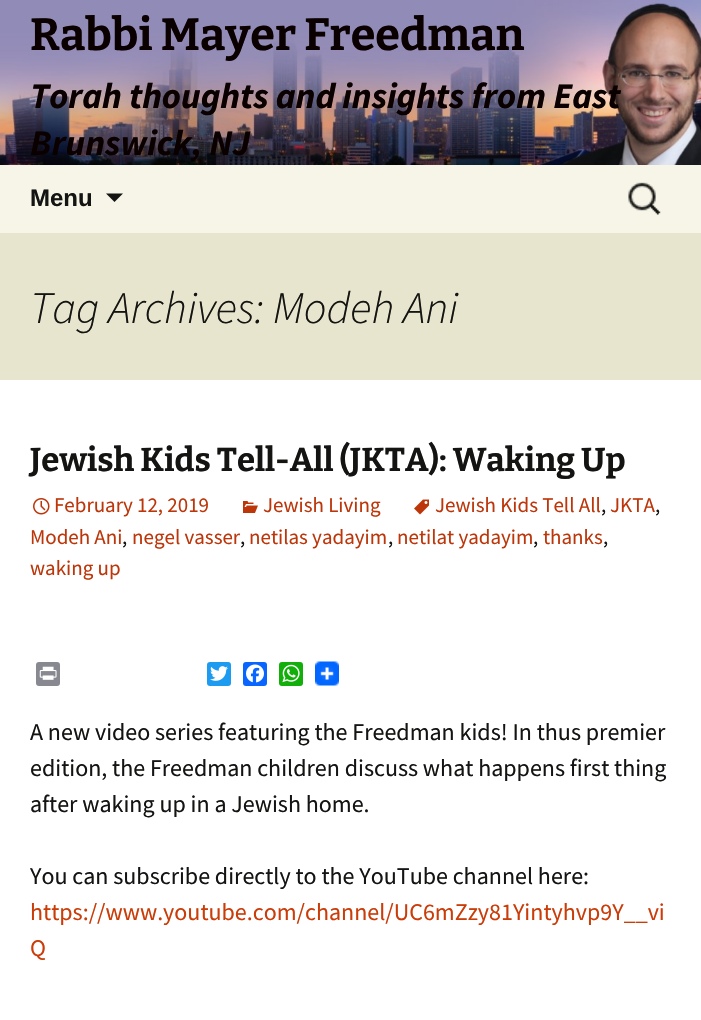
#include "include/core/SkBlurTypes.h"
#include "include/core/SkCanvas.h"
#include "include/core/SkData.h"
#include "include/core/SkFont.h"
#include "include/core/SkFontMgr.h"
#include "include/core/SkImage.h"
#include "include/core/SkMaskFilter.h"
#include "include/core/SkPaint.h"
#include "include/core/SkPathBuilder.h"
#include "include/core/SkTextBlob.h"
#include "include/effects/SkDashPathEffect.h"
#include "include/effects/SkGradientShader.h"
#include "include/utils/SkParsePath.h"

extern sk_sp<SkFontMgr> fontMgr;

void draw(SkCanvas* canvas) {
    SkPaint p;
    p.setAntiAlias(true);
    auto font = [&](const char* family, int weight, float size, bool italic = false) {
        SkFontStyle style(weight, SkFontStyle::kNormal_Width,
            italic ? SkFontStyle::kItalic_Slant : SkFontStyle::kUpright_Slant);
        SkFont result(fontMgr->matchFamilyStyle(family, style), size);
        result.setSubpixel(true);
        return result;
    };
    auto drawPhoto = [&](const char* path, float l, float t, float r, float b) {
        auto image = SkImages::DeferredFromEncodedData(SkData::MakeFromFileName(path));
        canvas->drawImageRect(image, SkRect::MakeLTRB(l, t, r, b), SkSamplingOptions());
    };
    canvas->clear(0xFFFFFFFF);
    drawPhoto("media/1.png", 0, 0, 701, 165);
    auto font1 = font("Bitter", 100, 45);
    p.setColor(0xFF0A0000);
    canvas->drawString("Rabbi Mayer Freedman", 30, 50, font1, p);
    auto font2 = font("Source Sans Pro", 700, 36, true);
    canvas->drawString("Torah thoughts and insights from East", 30, 108, font2, p);
    canvas->drawString("Brunswick, NJ", 30, 155, font2, p);
    p.setColor(0xFFF7F5E7);
    canvas->drawRect(SkRect::MakeLTRB(0, 165, 701, 233), p);
    auto font3 = font("Liberation Sans", 700, 24);
    p.setColor(0xFF141412);
    canvas->drawString("Menu", 30, 206, font3, p);
    canvas->drawPath(SkPathBuilder().moveTo(106, 193.5f).lineTo(114.5f, 202).lineTo(123, 193.5f).close().detach(), p);
    drawPhoto("media/2.png", 628, 182, 661, 215);
    p.setColor(0xFFE8E5CE);
    canvas->drawRect(SkRect::MakeLTRB(0, 233, 701, 380), p);
    auto font4 = font("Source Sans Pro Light", 300, 45, true);
    p.setColor(0xFF141412);
    canvas->drawString("Tag Archives: Modeh Ani", 30, 323, font4, p);
    auto font5 = font("Bitter", 100, 33);
    canvas->drawString("Jewish Kids Tell-All (JKTA): Waking Up", 30, 471, font5, p);
    drawPhoto("media/3.png", 414, 499, 429, 515);
    auto font6 = font("Source Sans Pro", 400, 21);
    p.setColor(0xFFBC360A);
    canvas->drawString("Jewish Kids Tell All", 435, 512, font6, p);
    p.setColor(0xFF141412);
    canvas->drawString(",", 601, 512, font6, p);
    p.setColor(0xFFBC360A);
    canvas->drawString("JKTA", 610, 512, font6, p);
    p.setColor(0xFF141412);
    canvas->drawString(",", 655, 512, font6, p);
    p.setColor(0xFFBC360A);
    canvas->drawString("Modeh Ani", 30, 544, font6, p);
    p.setColor(0xFF141412);
    canvas->drawString(",", 122, 544, font6, p);
    p.setColor(0xFFBC360A);
    canvas->drawString("negel vasser", 132, 544, font6, p);
    p.setColor(0xFF141412);
    canvas->drawString(",", 240, 544, font6, p);
    p.setColor(0xFFBC360A);
    canvas->drawString("netilas yadayim", 249, 544, font6, p);
    p.setColor(0xFF141412);
    canvas->drawString(",", 388, 544, font6, p);
    p.setColor(0xFFBC360A);
    canvas->drawString("netilat yadayim", 397, 544, font6, p);
    p.setColor(0xFF141412);
    canvas->drawString(",", 533, 544, font6, p);
    p.setColor(0xFFBC360A);
    canvas->drawString("thanks", 543, 544, font6, p);
    p.setColor(0xFF141412);
    canvas->drawString(",", 603, 544, font6, p);
    p.setColor(0xFFBC360A);
    canvas->drawString("waking up", 30, 575, font6, p);
    drawPhoto("media/4.png", 33, 498, 50, 515);
    canvas->drawString("February 12, 2019", 54, 512, font6, p);
    drawPhoto("media/5.png", 243, 501, 258, 513);
    canvas->drawString("Jewish Living", 263, 512, font6, p);
    p.setColor(0xFF888990);
    canvas->drawRoundRect(SkRect::MakeLTRB(36, 662, 60, 686), 3, 3, p);
    drawPhoto("media/6.png", 39, 666, 57, 680);
    p.setColor(0xFF1D9BF0);
    canvas->drawRoundRect(SkRect::MakeLTRB(207, 662, 231, 686), 3, 3, p);
    drawPhoto("media/7.png", 210, 666, 228, 681);
    p.setColor(0xFF0866FF);
    canvas->drawRoundRect(SkRect::MakeLTRB(243, 662, 267, 686), 3, 3, p);
    drawPhoto("media/8.png", 246, 664, 264, 683);
    p.setColor(0xFF12AF0A);
    canvas->drawRoundRect(SkRect::MakeLTRB(279, 662, 303, 686), 3, 3, p);
    drawPhoto("media/9.png", 282, 664, 300, 683);
    drawPhoto("media/10.png", 315, 661, 339, 686);
    auto font7 = font("Source Sans Pro", 400, 24);
    p.setColor(0xFF141412);
    {
        const struct { const char* s; float x, y; } items[] = {
            {"A new video series featuring the Freedman kids! In thus premier", 30, 740},
            {"edition, the Freedman children discuss what happens first thing", 30, 776},
            {"after waking up in a Jewish home.", 30, 812},
            {"You can subscribe directly to the YouTube channel here:", 30, 884},
        };
        for (auto [s, x, y] : items) {
            canvas->drawString(s, x, y, font7, p);
        }
    }
    p.setColor(0xFFCA3C08);
    canvas->drawString("https://www.youtube.com/channel/UC6mZzy81Yintyhvp9Y__vi", 30, 920, font7, p);
    canvas->drawString("Q", 30, 956, font7, p);
}
